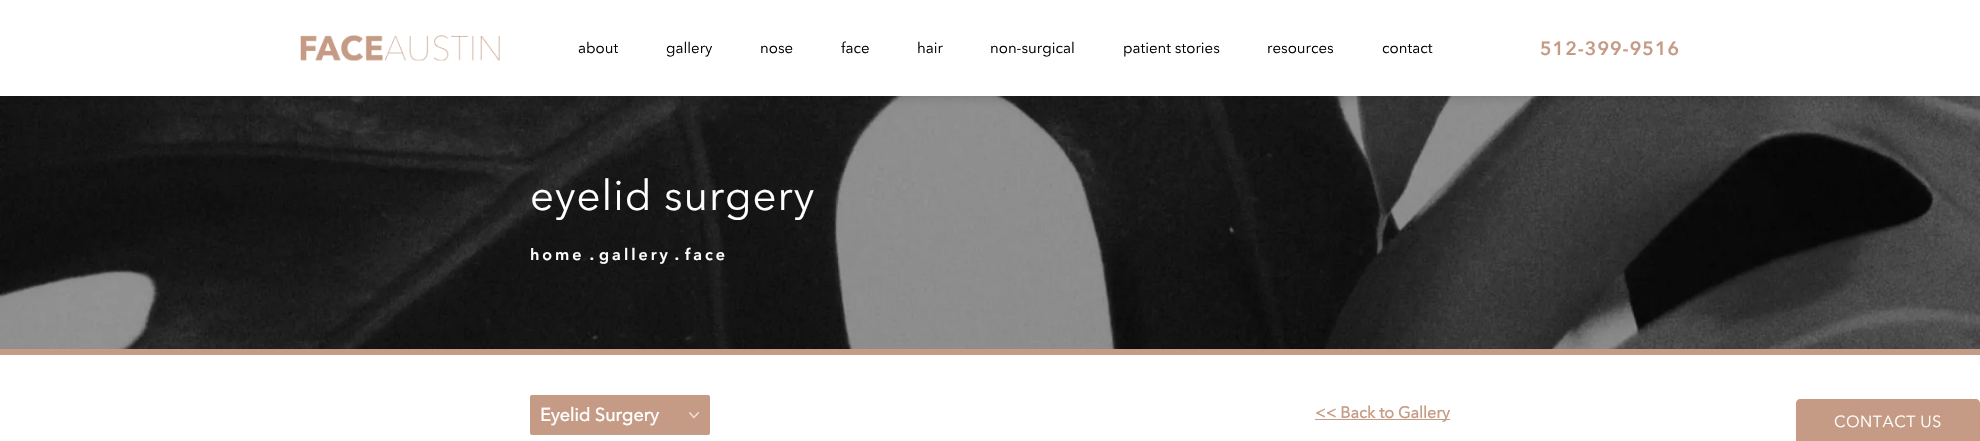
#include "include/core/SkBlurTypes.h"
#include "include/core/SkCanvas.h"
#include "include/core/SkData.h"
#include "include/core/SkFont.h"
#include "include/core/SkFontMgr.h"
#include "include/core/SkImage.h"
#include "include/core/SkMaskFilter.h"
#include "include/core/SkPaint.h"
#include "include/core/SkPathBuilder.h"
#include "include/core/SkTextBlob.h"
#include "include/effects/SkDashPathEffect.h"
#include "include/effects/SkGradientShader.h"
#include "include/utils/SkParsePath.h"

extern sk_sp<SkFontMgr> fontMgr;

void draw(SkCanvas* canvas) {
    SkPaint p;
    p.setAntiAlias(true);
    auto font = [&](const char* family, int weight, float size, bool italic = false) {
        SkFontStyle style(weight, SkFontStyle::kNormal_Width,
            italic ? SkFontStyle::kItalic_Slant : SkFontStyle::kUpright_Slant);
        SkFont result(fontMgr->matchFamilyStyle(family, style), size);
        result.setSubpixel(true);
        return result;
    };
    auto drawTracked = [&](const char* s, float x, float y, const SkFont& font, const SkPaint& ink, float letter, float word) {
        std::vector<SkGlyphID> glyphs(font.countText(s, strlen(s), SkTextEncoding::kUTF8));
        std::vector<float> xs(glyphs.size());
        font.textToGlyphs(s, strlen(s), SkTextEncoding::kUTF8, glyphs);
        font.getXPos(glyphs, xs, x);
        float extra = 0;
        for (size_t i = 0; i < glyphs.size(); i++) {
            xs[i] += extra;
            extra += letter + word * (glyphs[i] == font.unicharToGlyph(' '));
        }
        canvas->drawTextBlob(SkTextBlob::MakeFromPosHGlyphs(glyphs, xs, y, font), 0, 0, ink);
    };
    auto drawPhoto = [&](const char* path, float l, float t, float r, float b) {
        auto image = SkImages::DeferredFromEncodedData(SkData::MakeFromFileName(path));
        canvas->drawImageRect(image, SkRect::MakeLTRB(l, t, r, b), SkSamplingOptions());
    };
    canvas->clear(0xFFFFFFFF);
    drawPhoto("media/2.png", 0, 96, 1980, 349);
    p.setColor(0x66141414);
    p.setMaskFilter(SkMaskFilter::MakeBlur(kNormal_SkBlurStyle, 7.5f));
    canvas->drawRect(SkRect::MakeLTRB(4, 4, 1976, 92), p);
    p.setMaskFilter(nullptr);
    p.setColor(0xFFFFFFFF);
    canvas->drawRect(SkRect::MakeLTRB(0, 0, 1980, 96), p);
    drawPhoto("media/1.png", 300, 35, 500, 61);
    auto font1 = font("Avenir Next", 400, 15);
    p.setColor(0xFF000000);
    {
        const struct { const char* s; float x, y; } items[] = {
            {"about", 578, 53},
            {"gallery", 666, 53},
            {"nose", 760, 53},
            {"face", 841, 53},
            {"hair", 917, 53},
            {"non-surgical", 990, 53},
            {"patient stories", 1123, 53},
            {"resources", 1267, 53},
            {"contact", 1382, 53},
        };
        for (auto [s, x, y] : items) {
            canvas->drawString(s, x, y, font1, p);
        }
    }
    auto font2 = font("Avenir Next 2", 700, 19);
    p.setColor(0xFFC69B85);
    drawTracked("512-399-9516", 1540, 55, font2, p, 1, 0);
    canvas->drawRect(SkRect::MakeLTRB(0, 349, 1980, 355), p);
    auto font3 = font("Avenir Next", 400, 42);
    p.setColor(0xFFFFFFFF);
    drawTracked("eyelid surgery", 530, 210, font3, p, 1, 0);
    auto font4 = font("Avenir Next 2", 700, 16);
    drawTracked("home", 530, 260, font4, p, 3, 0);
    auto font5 = font("Avenir Next", 700, 20);
    canvas->drawString(".", 589, 260, font5, p);
    drawTracked("gallery", 599, 260, font4, p, 3, 0);
    canvas->drawString(".", 674, 260, font5, p);
    drawTracked("face", 685, 260, font4, p, 3, 0);
    p.setColor(0xFFC69B85);
    canvas->drawRoundRect(SkRect::MakeLTRB(530, 395, 710, 435), 2, 2, p);
    auto font6 = font("Avenir Next", 700, 18);
    p.setColor(0xFFFFFFFF);
    canvas->drawString("Eyelid Surgery", 540, 421, font6, p);
    drawPhoto("media/3.png", 689, 412, 699, 419);
    p.setColor(0xFFC69B85);
    canvas->drawRect(SkRect::MakeLTRB(1315, 419, 1450, 420), p);
    auto font7 = font("Avenir Next", 700, 16);
    canvas->drawString("<< Back to Gallery", 1315, 418, font7, p);
    canvas->drawPath(SkPathBuilder().moveTo(1800, 399).lineTo(1976, 399).cubicTo(1978, 399, 1980, 401, 1980, 403).lineTo(1980, 441).lineTo(1796, 441).lineTo(1796, 403).cubicTo(1796, 401, 1798, 399, 1800, 399).close().detach(), p);
    auto font8 = font("Avenir Next", 400, 16);
    p.setColor(0xFFFFFFFF);
    drawTracked("CONTACT US", 1834, 427, font8, p, 0.5f, 0);
}
